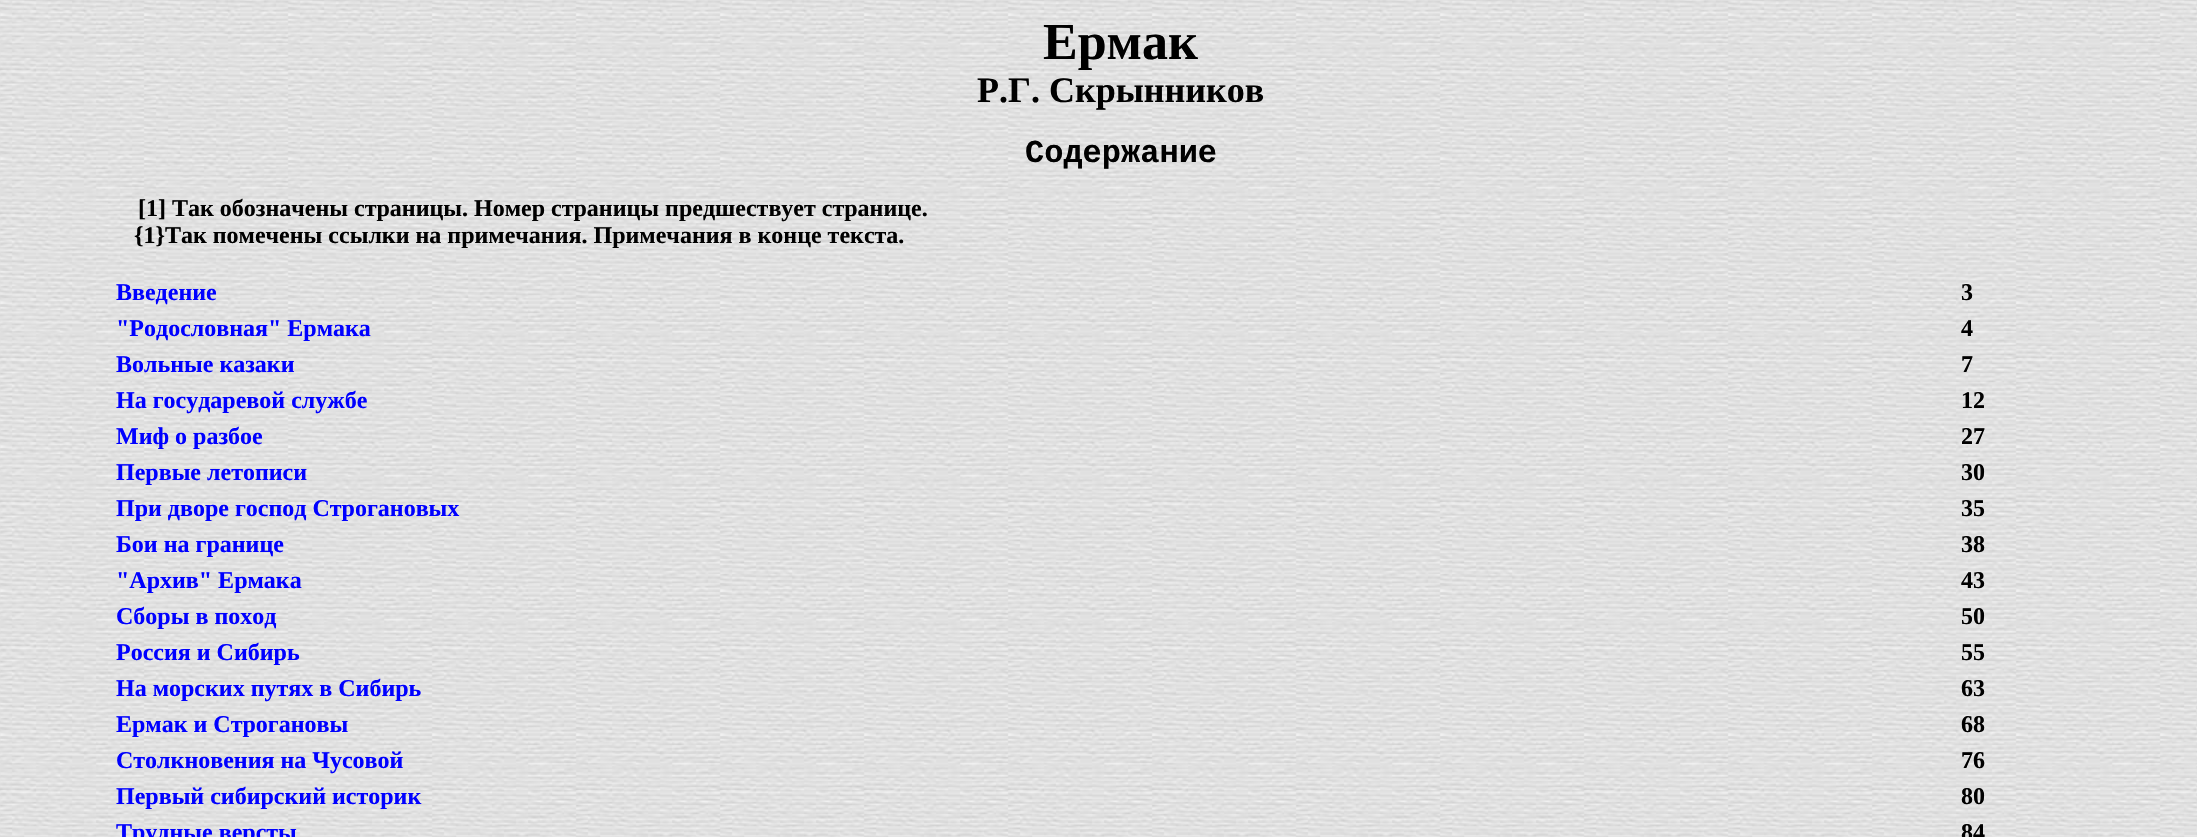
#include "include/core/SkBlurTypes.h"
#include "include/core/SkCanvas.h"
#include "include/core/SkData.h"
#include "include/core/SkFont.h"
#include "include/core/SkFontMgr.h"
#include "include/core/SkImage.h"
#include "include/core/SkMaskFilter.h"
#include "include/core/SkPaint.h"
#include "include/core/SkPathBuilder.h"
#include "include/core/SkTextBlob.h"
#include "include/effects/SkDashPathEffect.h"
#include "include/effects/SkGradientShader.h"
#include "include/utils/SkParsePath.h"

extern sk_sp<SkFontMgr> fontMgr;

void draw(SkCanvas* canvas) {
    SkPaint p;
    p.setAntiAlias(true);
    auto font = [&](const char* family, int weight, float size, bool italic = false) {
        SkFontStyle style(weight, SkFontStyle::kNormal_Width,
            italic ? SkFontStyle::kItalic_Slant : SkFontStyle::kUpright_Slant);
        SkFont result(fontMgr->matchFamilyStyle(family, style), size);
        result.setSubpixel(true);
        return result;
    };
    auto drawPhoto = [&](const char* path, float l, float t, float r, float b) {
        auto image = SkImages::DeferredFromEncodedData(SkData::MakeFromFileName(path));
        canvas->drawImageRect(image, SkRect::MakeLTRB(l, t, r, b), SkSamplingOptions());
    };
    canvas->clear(0xFFFFFFFF);
    drawPhoto("media/1.png", 0, 0, 2197, 837);
    auto font1 = font("Liberation Serif", 700, 52);
    p.setColor(0xFF000000);
    canvas->drawString("Ермак", 1043, 59, font1, p);
    auto font2 = font("Liberation Serif", 700, 36);
    canvas->drawString("Р.Г. Скрынников", 977, 102, font2, p);
    auto font3 = font("Liberation Mono", 700, 32);
    canvas->drawString("Содержание", 1025, 162, font3, p);
    auto font4 = font("Liberation Serif", 700, 24);
    canvas->drawString("[1] Так обозначены страницы. Номер страницы предшествует странице.", 138, 216, font4, p);
    canvas->drawString("{1}Так помечены ссылки на примечания. Примечания в конце текста.", 134, 243, font4, p);
    p.setColor(0xFF0000FF);
    canvas->drawString("Введение", 116, 300, font4, p);
    p.setColor(0xFF000000);
    canvas->drawString("3", 1961, 300, font4, p);
    p.setColor(0xFF0000FF);
    canvas->drawString("\"Родословная\" Ермака", 116, 336, font4, p);
    p.setColor(0xFF000000);
    canvas->drawString("4", 1961, 336, font4, p);
    p.setColor(0xFF0000FF);
    canvas->drawString("Вольные казаки", 116, 372, font4, p);
    p.setColor(0xFF000000);
    canvas->drawString("7", 1961, 372, font4, p);
    p.setColor(0xFF0000FF);
    canvas->drawString("На государевой службе", 116, 408, font4, p);
    p.setColor(0xFF000000);
    canvas->drawString("12", 1961, 408, font4, p);
    p.setColor(0xFF0000FF);
    canvas->drawString("Миф о разбое", 116, 444, font4, p);
    p.setColor(0xFF000000);
    canvas->drawString("27", 1961, 444, font4, p);
    p.setColor(0xFF0000FF);
    canvas->drawString("Первые летописи", 116, 480, font4, p);
    p.setColor(0xFF000000);
    canvas->drawString("30", 1961, 480, font4, p);
    p.setColor(0xFF0000FF);
    canvas->drawString("При дворе господ Строгановых", 116, 516, font4, p);
    p.setColor(0xFF000000);
    canvas->drawString("35", 1961, 516, font4, p);
    p.setColor(0xFF0000FF);
    canvas->drawString("Бои на границе", 116, 552, font4, p);
    p.setColor(0xFF000000);
    canvas->drawString("38", 1961, 552, font4, p);
    p.setColor(0xFF0000FF);
    canvas->drawString("\"Архив\" Ермака", 116, 588, font4, p);
    p.setColor(0xFF000000);
    canvas->drawString("43", 1961, 588, font4, p);
    p.setColor(0xFF0000FF);
    canvas->drawString("Сборы в поход", 116, 624, font4, p);
    p.setColor(0xFF000000);
    canvas->drawString("50", 1961, 624, font4, p);
    p.setColor(0xFF0000FF);
    canvas->drawString("Россия и Сибирь", 116, 660, font4, p);
    p.setColor(0xFF000000);
    canvas->drawString("55", 1961, 660, font4, p);
    p.setColor(0xFF0000FF);
    canvas->drawString("На морских путях в Сибирь", 116, 696, font4, p);
    p.setColor(0xFF000000);
    canvas->drawString("63", 1961, 696, font4, p);
    p.setColor(0xFF0000FF);
    canvas->drawString("Ермак и Строгановы", 116, 732, font4, p);
    p.setColor(0xFF000000);
    canvas->drawString("68", 1961, 732, font4, p);
    p.setColor(0xFF0000FF);
    canvas->drawString("Столкновения на Чусовой", 116, 768, font4, p);
    p.setColor(0xFF000000);
    canvas->drawString("76", 1961, 768, font4, p);
    p.setColor(0xFF0000FF);
    canvas->drawString("Первый сибирский историк", 116, 804, font4, p);
    p.setColor(0xFF000000);
    canvas->drawString("80", 1961, 804, font4, p);
    p.setColor(0xFF0000FF);
    canvas->drawString("Трудные версты", 116, 840, font4, p);
    p.setColor(0xFF000000);
    canvas->drawString("84", 1961, 840, font4, p);
}
